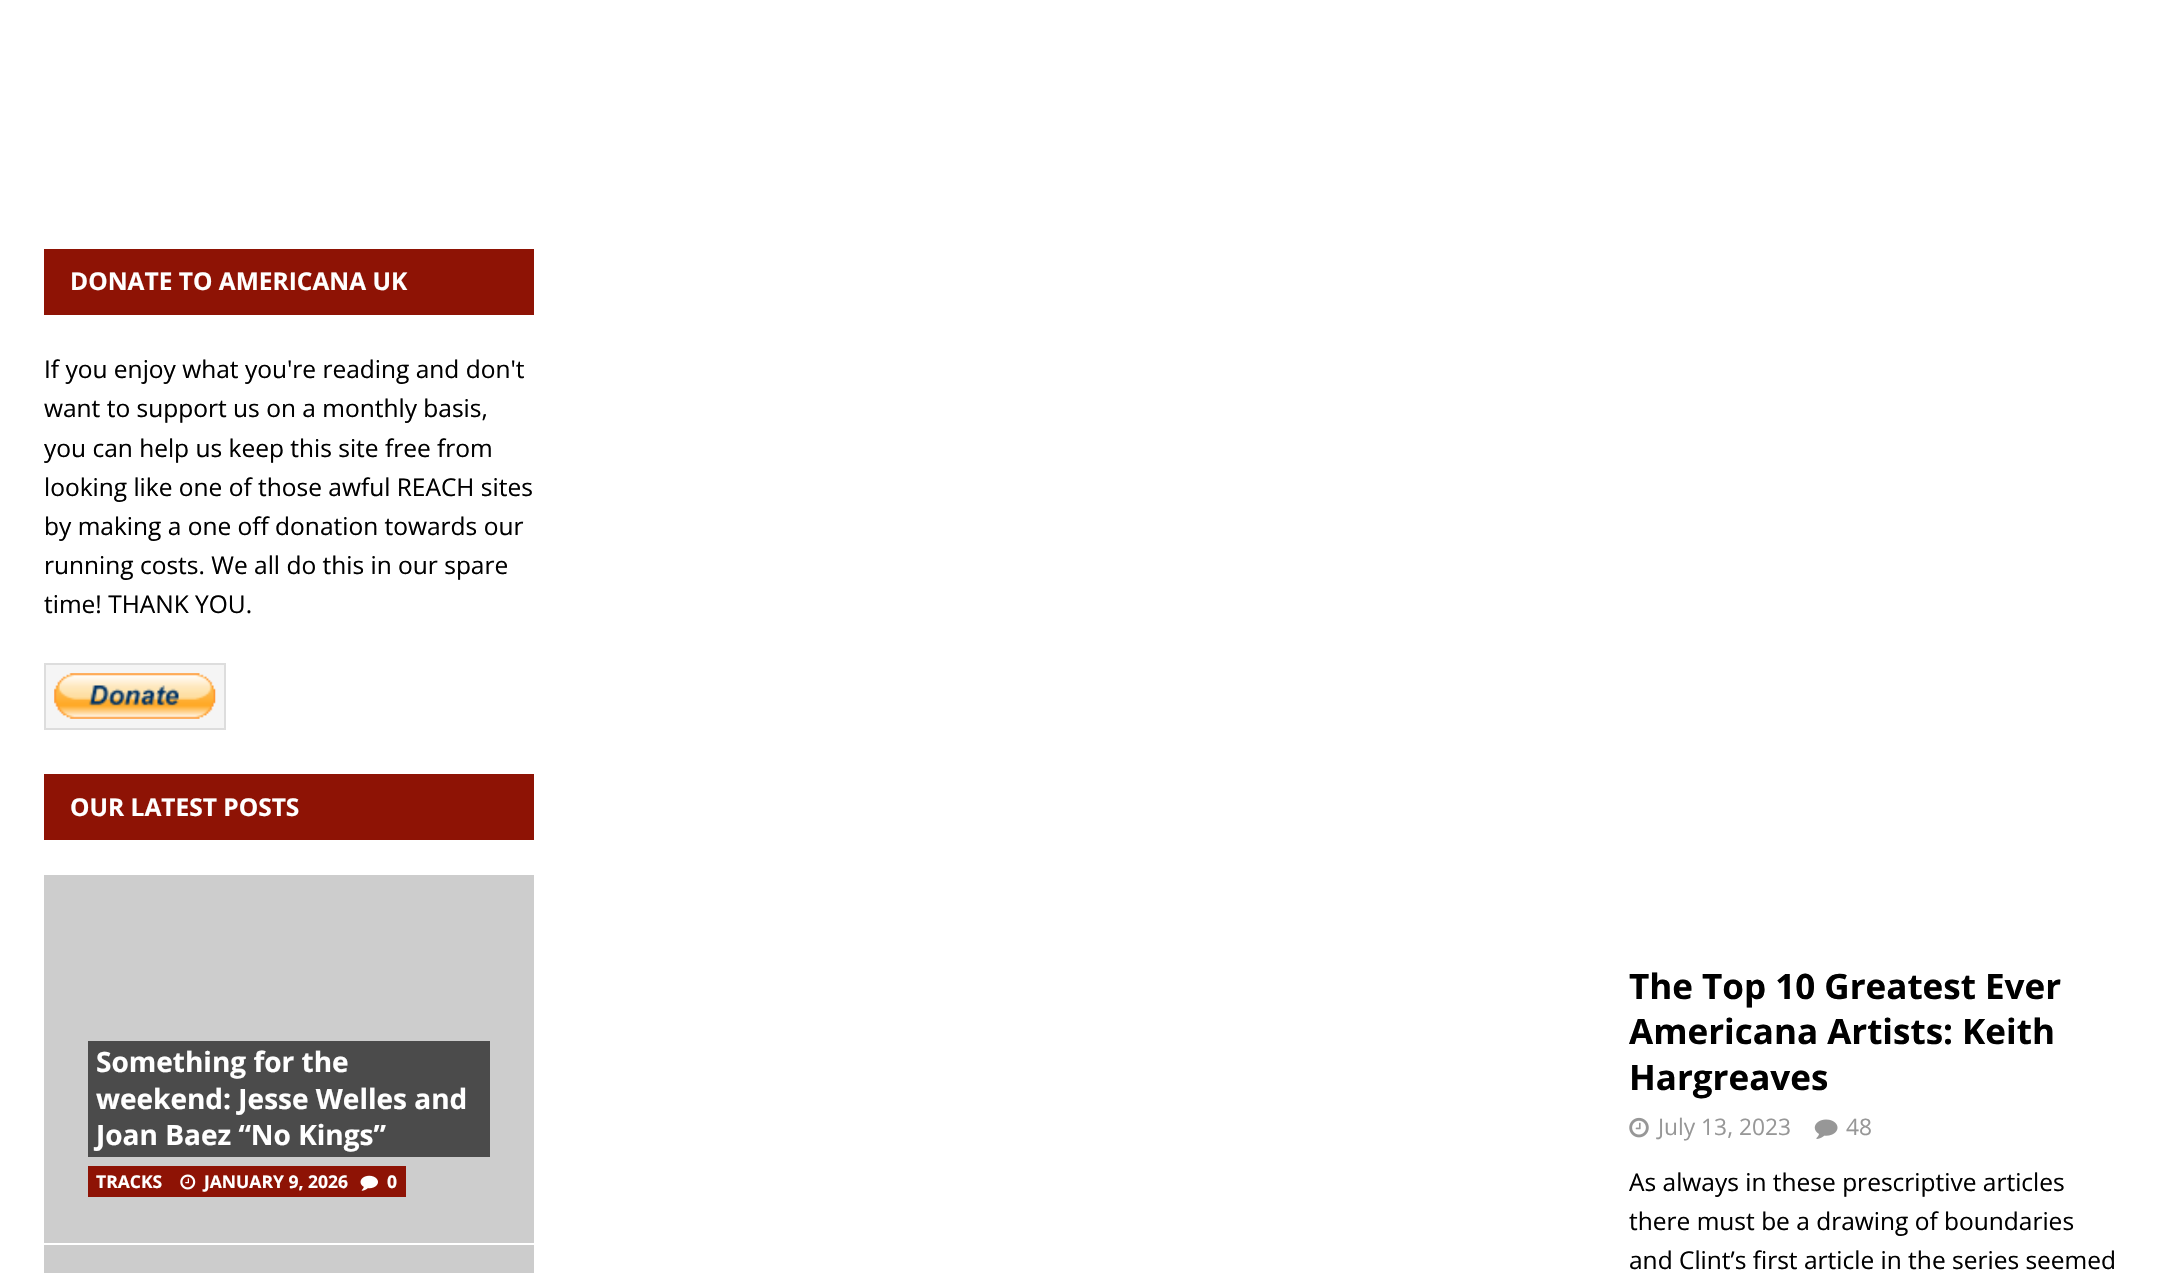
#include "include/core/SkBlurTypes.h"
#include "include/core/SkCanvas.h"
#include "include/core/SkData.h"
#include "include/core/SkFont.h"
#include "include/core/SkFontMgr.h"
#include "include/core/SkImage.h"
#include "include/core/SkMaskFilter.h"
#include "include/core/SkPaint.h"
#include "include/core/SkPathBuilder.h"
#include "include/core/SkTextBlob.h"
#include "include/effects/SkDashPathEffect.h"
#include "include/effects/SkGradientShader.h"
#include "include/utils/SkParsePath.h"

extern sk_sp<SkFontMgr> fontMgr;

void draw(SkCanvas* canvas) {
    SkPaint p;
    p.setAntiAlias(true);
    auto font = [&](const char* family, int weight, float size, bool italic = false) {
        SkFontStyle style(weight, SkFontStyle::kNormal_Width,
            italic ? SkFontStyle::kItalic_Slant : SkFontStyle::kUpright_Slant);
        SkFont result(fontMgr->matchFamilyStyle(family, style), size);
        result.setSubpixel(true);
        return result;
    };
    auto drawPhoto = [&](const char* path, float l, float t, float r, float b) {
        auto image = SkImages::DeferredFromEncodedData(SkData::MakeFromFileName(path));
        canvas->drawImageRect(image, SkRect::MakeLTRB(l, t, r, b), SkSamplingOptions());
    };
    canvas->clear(0xFFFFFFFF);
    p.setColor(0xFF8E1305);
    canvas->drawRect(SkRect::MakeLTRB(44, 249, 534, 315), p);
    auto font1 = font("Open Sans", 700, 24.5f);
    p.setColor(0xFFFFFFFF);
    canvas->drawString("DONATE TO AMERICANA UK", 70, 290, font1, p);
    auto font2 = font("Open Sans", 400, 24.5f);
    p.setColor(0xFF000000);
    {
        const struct { const char* s; float x, y; } items[] = {
            {"If you enjoy what you're reading and don't", 44, 378},
            {"want to support us on a monthly basis,", 44, 417},
            {"you can help us keep this site free from", 44, 457},
            {"looking like one of those awful REACH sites", 44, 496},
            {"by making a one off donation towards our", 44, 535},
            {"running costs. We all do this in our spare", 44, 574},
            {"time! THANK YOU.", 44, 613},
        };
        for (auto [s, x, y] : items) {
            canvas->drawString(s, x, y, font2, p);
        }
    }
    p.setColor(0xFFF5F5F5);
    canvas->drawRect(SkRect::MakeLTRB(45, 664, 225, 729), p);
    p.setStyle(SkPaint::kStroke_Style);
    p.setStrokeWidth(2);
    p.setColor(0xFFDDDDDD);
    canvas->drawRect(SkRect::MakeLTRB(45, 664, 225, 729), p);
    drawPhoto("media/1.png", 54, 673, 216, 719);
    p.setStyle(SkPaint::kFill_Style);
    p.setColor(0xFF8E1305);
    canvas->drawRect(SkRect::MakeLTRB(44, 774, 534, 840), p);
    p.setColor(0xFFFFFFFF);
    canvas->drawString("OUR LATEST POSTS", 70, 816, font1, p);
    p.setColor(0xFFCDCDCD);
    canvas->drawRect(SkRect::MakeLTRB(44, 875, 534, 1243), p);
    p.setColor(0xFF4B4B4B);
    canvas->drawRect(SkRect::MakeLTRB(88, 1041, 490, 1157), p);
    auto font3 = font("Open Sans", 700, 28);
    p.setColor(0xFFFFFFFF);
    {
        const struct { const char* s; float x, y; } items[] = {
            {"Something for the", 96, 1072},
            {"weekend: Jesse Welles and", 96, 1109},
            {"Joan Baez “No Kings”", 96, 1145},
        };
        for (auto [s, x, y] : items) {
            canvas->drawString(s, x, y, font3, p);
        }
    }
    p.setColor(0xFF8E1305);
    canvas->drawRect(SkRect::MakeLTRB(88, 1166, 406, 1197), p);
    auto font4 = font("Open Sans", 700, 17.5f);
    p.setColor(0xFFFFFFFF);
    canvas->drawString("TRACKS", 96, 1188, font4, p);
    drawPhoto("media/2.png", 180, 1174, 196, 1190);
    canvas->drawString("JANUARY 9, 2026", 204, 1188, font4, p);
    drawPhoto("media/3.png", 360, 1175, 378, 1191);
    canvas->drawString("0", 387, 1188, font4, p);
    p.setColor(0xFFCCCCCC);
    canvas->drawRect(SkRect::MakeLTRB(44, 1245, 534, 1273), p);
    auto font5 = font("Open Sans", 700, 35);
    p.setColor(0xFF000000);
    {
        const struct { const char* s; float x, y; } items[] = {
            {"The Top 10 Greatest Ever", 1629, 999},
            {"Americana Artists: Keith", 1629, 1044},
            {"Hargreaves", 1629, 1090},
        };
        for (auto [s, x, y] : items) {
            canvas->drawString(s, x, y, font5, p);
        }
    }
    drawPhoto("media/4.png", 1629, 1117, 1649, 1138);
    auto font6 = font("Open Sans", 400, 22.75f);
    p.setColor(0xFF979797);
    canvas->drawString("July 13, 2023", 1658, 1135, font6, p);
    drawPhoto("media/5.png", 1814, 1119, 1838, 1139);
    canvas->drawString("48", 1846, 1135, font6, p);
    p.setColor(0xFF000000);
    {
        const struct { const char* s; float x, y; } items[] = {
            {"As always in these prescriptive articles", 1629, 1191},
            {"there must be a drawing of boundaries", 1629, 1230},
            {"and Clint’s first article in the series seemed", 1629, 1269},
        };
        for (auto [s, x, y] : items) {
            canvas->drawString(s, x, y, font2, p);
        }
    }
}
